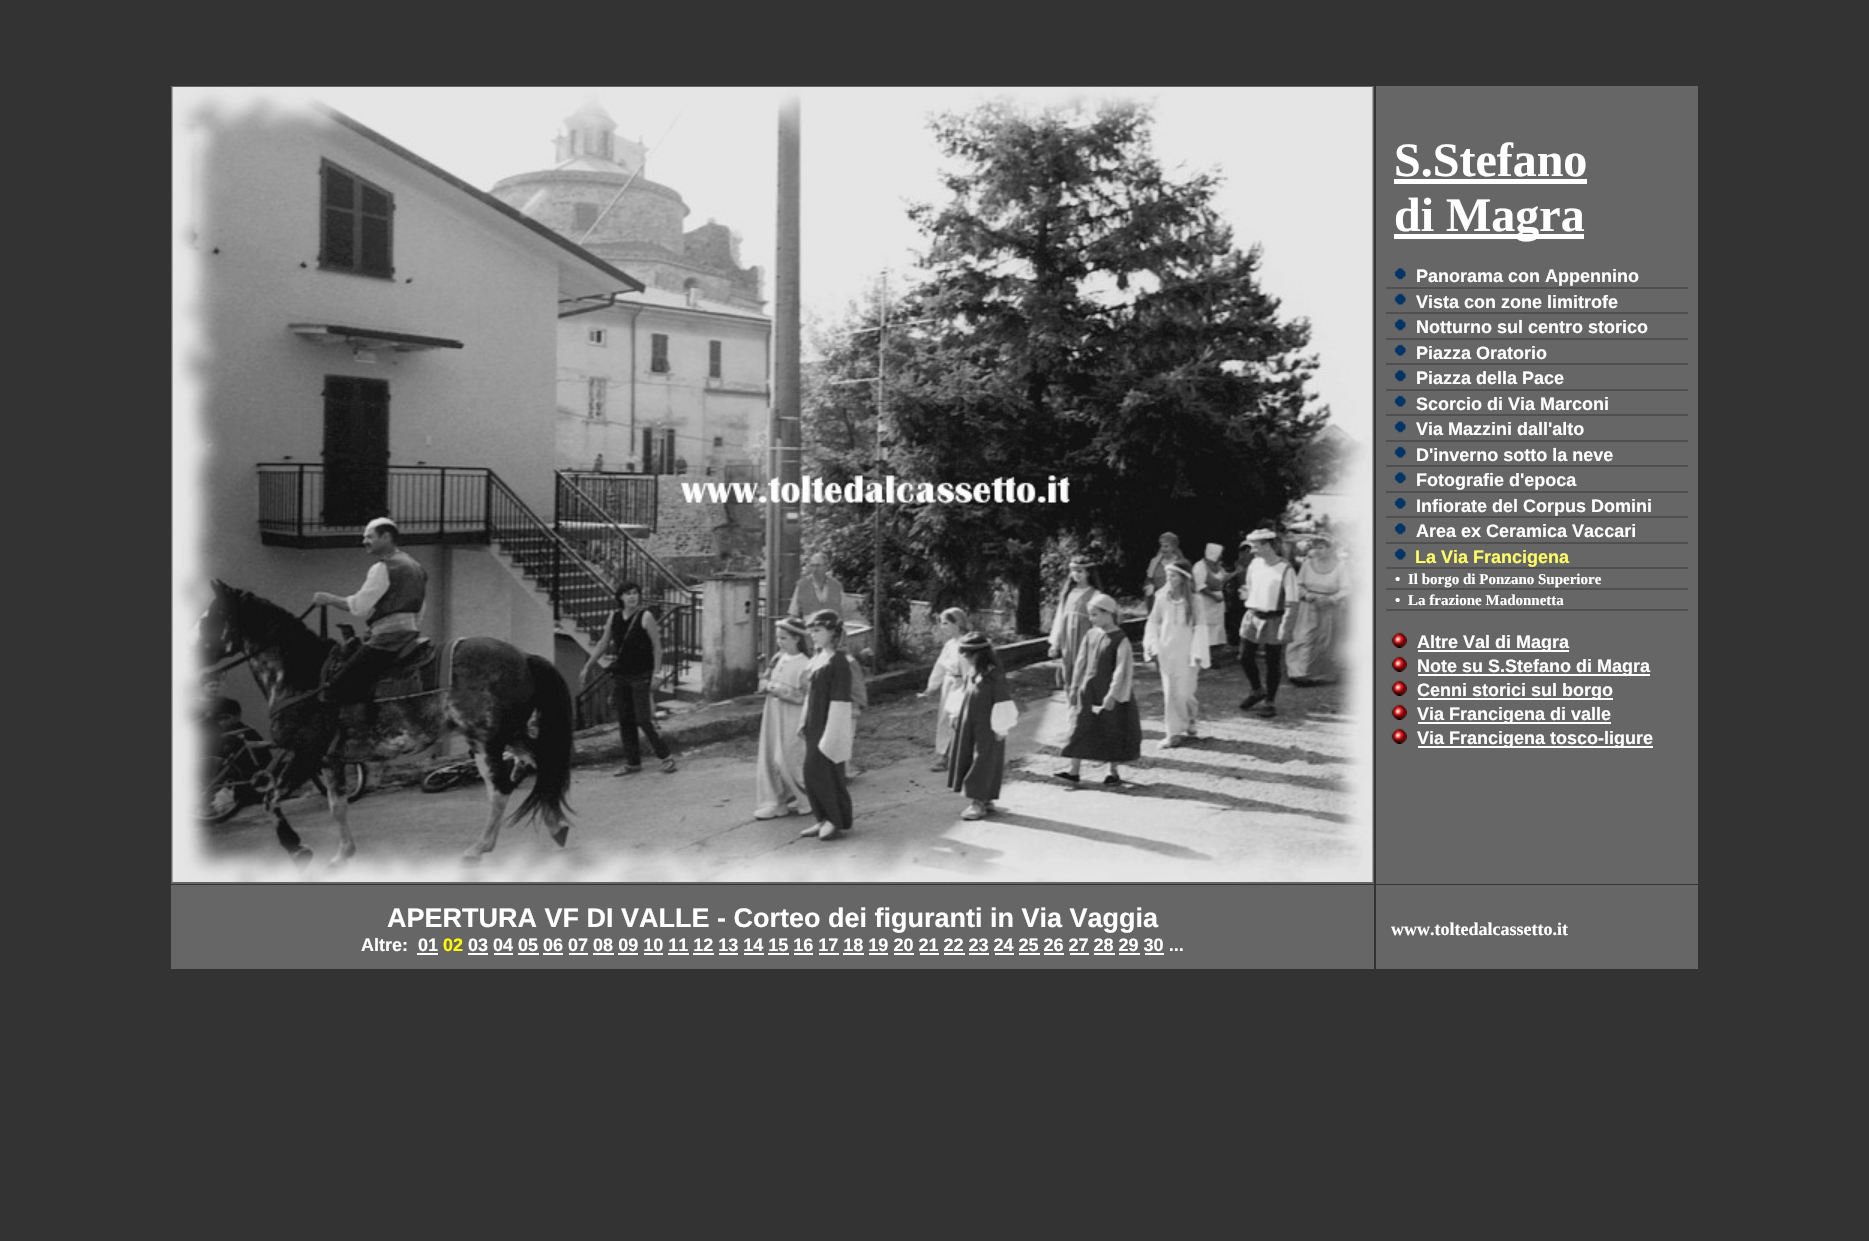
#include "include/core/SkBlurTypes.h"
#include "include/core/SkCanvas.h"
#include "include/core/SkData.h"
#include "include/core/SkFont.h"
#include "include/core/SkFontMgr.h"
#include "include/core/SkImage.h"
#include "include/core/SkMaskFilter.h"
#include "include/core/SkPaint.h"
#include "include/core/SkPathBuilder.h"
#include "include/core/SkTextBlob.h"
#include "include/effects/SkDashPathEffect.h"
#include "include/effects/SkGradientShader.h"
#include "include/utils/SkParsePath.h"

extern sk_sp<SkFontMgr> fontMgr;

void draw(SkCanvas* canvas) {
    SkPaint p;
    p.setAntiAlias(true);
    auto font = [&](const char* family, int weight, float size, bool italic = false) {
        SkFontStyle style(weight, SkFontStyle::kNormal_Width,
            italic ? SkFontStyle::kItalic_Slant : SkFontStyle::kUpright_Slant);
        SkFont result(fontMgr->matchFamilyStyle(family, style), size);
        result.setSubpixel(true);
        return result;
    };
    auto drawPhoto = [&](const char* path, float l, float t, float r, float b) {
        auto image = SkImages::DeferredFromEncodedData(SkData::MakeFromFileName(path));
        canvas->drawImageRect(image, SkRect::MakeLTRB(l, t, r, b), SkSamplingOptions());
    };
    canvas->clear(0xFF333333);
    p.setStyle(SkPaint::kStroke_Style);
    p.setStrokeWidth(2);
    p.setColor(0xFF666666);
    canvas->drawRect(SkRect::MakeLTRB(172, 87, 1373, 883), p);
    drawPhoto("media/1.png", 172, 87, 1373, 882);
    p.setStyle(SkPaint::kFill_Style);
    canvas->drawRect(SkRect::MakeLTRB(1376, 86, 1698, 884), p);
    auto font1 = font("Liberation Serif", 700, 48);
    p.setColor(0xFFFFFFFF);
    canvas->drawString("S.Stefano", 1394, 176, font1, p);
    canvas->drawRect(SkRect::MakeLTRB(1394, 179, 1587, 184), p);
    canvas->drawRect(SkRect::MakeLTRB(1394, 234, 1584, 239), p);
    canvas->drawString("di Magra", 1394, 231, font1, p);
    p.setColor(0xFF4F4F4F);
    canvas->drawRect(SkRect::MakeLTRB(1386, 287, 1688, 289), p);
    drawPhoto("media/2.png", 1394, 268, 1406, 280);
    auto font2 = font("Liberation Sans", 700, 18);
    p.setColor(0xFFFFFFFF);
    canvas->drawString("Panorama con Appennino", 1416, 282, font2, p);
    p.setColor(0xFF4F4F4F);
    canvas->drawRect(SkRect::MakeLTRB(1386, 312, 1688, 314), p);
    drawPhoto("media/3.png", 1394, 293, 1406, 305);
    p.setColor(0xFFFFFFFF);
    canvas->drawString("Vista con zone limitrofe", 1416, 308, font2, p);
    p.setColor(0xFF4F4F4F);
    canvas->drawRect(SkRect::MakeLTRB(1386, 338, 1688, 340), p);
    drawPhoto("media/2.png", 1394, 319, 1406, 331);
    p.setColor(0xFFFFFFFF);
    canvas->drawString("Notturno sul centro storico", 1416, 333, font2, p);
    p.setColor(0xFF4F4F4F);
    canvas->drawRect(SkRect::MakeLTRB(1386, 363, 1688, 365), p);
    drawPhoto("media/3.png", 1394, 344, 1406, 356);
    p.setColor(0xFFFFFFFF);
    canvas->drawString("Piazza Oratorio", 1416, 359, font2, p);
    p.setColor(0xFF4F4F4F);
    canvas->drawRect(SkRect::MakeLTRB(1386, 389, 1688, 391), p);
    drawPhoto("media/2.png", 1394, 370, 1406, 382);
    p.setColor(0xFFFFFFFF);
    canvas->drawString("Piazza della Pace", 1416, 384, font2, p);
    p.setColor(0xFF4F4F4F);
    canvas->drawRect(SkRect::MakeLTRB(1386, 414, 1688, 416), p);
    drawPhoto("media/3.png", 1394, 395, 1406, 407);
    p.setColor(0xFFFFFFFF);
    canvas->drawString("Scorcio di Via Marconi", 1416, 410, font2, p);
    p.setColor(0xFF4F4F4F);
    canvas->drawRect(SkRect::MakeLTRB(1386, 440, 1688, 442), p);
    drawPhoto("media/2.png", 1394, 421, 1406, 433);
    p.setColor(0xFFFFFFFF);
    canvas->drawString("Via Mazzini dall'alto", 1416, 435, font2, p);
    p.setColor(0xFF4F4F4F);
    canvas->drawRect(SkRect::MakeLTRB(1386, 465, 1688, 467), p);
    drawPhoto("media/3.png", 1394, 446, 1406, 458);
    p.setColor(0xFFFFFFFF);
    canvas->drawString("D'inverno sotto la neve", 1416, 461, font2, p);
    p.setColor(0xFF4F4F4F);
    canvas->drawRect(SkRect::MakeLTRB(1386, 491, 1688, 493), p);
    drawPhoto("media/2.png", 1394, 472, 1406, 484);
    p.setColor(0xFFFFFFFF);
    canvas->drawString("Fotografie d'epoca", 1416, 486, font2, p);
    p.setColor(0xFF4F4F4F);
    canvas->drawRect(SkRect::MakeLTRB(1386, 516, 1688, 518), p);
    drawPhoto("media/3.png", 1394, 497, 1406, 509);
    p.setColor(0xFFFFFFFF);
    canvas->drawString("Infiorate del Corpus Domini", 1416, 512, font2, p);
    p.setColor(0xFF4F4F4F);
    canvas->drawRect(SkRect::MakeLTRB(1386, 542, 1688, 544), p);
    drawPhoto("media/2.png", 1394, 523, 1406, 535);
    p.setColor(0xFFFFFFFF);
    canvas->drawString("Area ex Ceramica Vaccari", 1416, 537, font2, p);
    p.setColor(0xFF4F4F4F);
    canvas->drawRect(SkRect::MakeLTRB(1386, 567, 1688, 569), p);
    drawPhoto("media/3.png", 1394, 548, 1406, 560);
    p.setColor(0xFFFFFF66);
    canvas->drawString("La Via Francigena", 1415, 563, font2, p);
    p.setColor(0xFF4F4F4F);
    canvas->drawRect(SkRect::MakeLTRB(1386, 588, 1688, 590), p);
    auto font3 = font("Liberation Serif", 700, 15);
    p.setColor(0xFFFFFFFF);
    canvas->drawString("•", 1395, 584, font3, p);
    canvas->drawString("Il borgo di Ponzano Superiore", 1408, 584, font3, p);
    p.setColor(0xFF4F4F4F);
    canvas->drawRect(SkRect::MakeLTRB(1386, 609, 1688, 611), p);
    p.setColor(0xFFFFFFFF);
    canvas->drawString("•", 1395, 605, font3, p);
    canvas->drawString("La frazione Madonnetta", 1408, 605, font3, p);
    drawPhoto("media/4.png", 1391, 632, 1407, 648);
    canvas->drawRect(SkRect::MakeLTRB(1418, 650, 1569, 652), p);
    canvas->drawString("Altre Val di Magra", 1417, 648, font2, p);
    drawPhoto("media/4.png", 1391, 656, 1407, 672);
    canvas->drawRect(SkRect::MakeLTRB(1418, 674, 1650, 676), p);
    canvas->drawString("Note su S.Stefano di Magra", 1417, 672, font2, p);
    drawPhoto("media/4.png", 1391, 680, 1407, 696);
    canvas->drawRect(SkRect::MakeLTRB(1418, 698, 1613, 700), p);
    canvas->drawString("Cenni storici sul borgo", 1417, 696, font2, p);
    drawPhoto("media/4.png", 1391, 704, 1407, 720);
    canvas->drawRect(SkRect::MakeLTRB(1418, 722, 1611, 724), p);
    canvas->drawString("Via Francigena di valle", 1417, 720, font2, p);
    drawPhoto("media/4.png", 1391, 728, 1407, 744);
    canvas->drawRect(SkRect::MakeLTRB(1418, 746, 1653, 748), p);
    canvas->drawString("Via Francigena tosco-ligure", 1417, 744, font2, p);
    p.setColor(0xFF666666);
    canvas->drawRect(SkRect::MakeLTRB(171, 885, 1374, 969), p);
    auto font4 = font("Liberation Sans", 700, 27);
    p.setColor(0xFFFFFFFF);
    canvas->drawString("APERTURA VF DI VALLE - Corteo dei figuranti in Via Vaggia", 387, 927, font4, p);
    canvas->drawString("Altre:", 361, 951, font2, p);
    canvas->drawString("01", 418, 951, font2, p);
    canvas->drawRect(SkRect::MakeLTRB(417, 953, 438, 955), p);
    p.setColor(0xFFFFFF00);
    canvas->drawString("02", 443, 951, font2, p);
    p.setColor(0xFFFFFFFF);
    canvas->drawString("03 04 05 06 07 08 09 10 11 12 13 14 15 16 17 18 19 20 21 22 23 24 25 26 27 28 29 30 ...", 468, 951, font2, p);
    {
        const struct { float l, t, r, b; SkColor color; } items[] = {
            {468, 953, 488, 955, 0xFFFFFFFF},
            {494, 953, 513, 955, 0xFFFFFFFF},
            {518, 953, 539, 955, 0xFFFFFFFF},
            {543, 953, 563, 955, 0xFFFFFFFF},
            {569, 953, 588, 955, 0xFFFFFFFF},
            {593, 953, 614, 955, 0xFFFFFFFF},
            {618, 953, 638, 955, 0xFFFFFFFF},
            {644, 953, 663, 955, 0xFFFFFFFF},
            {668, 953, 689, 955, 0xFFFFFFFF},
            {693, 953, 714, 955, 0xFFFFFFFF},
            {719, 953, 738, 955, 0xFFFFFFFF},
            {744, 953, 764, 955, 0xFFFFFFFF},
            {768, 953, 789, 955, 0xFFFFFFFF},
            {794, 953, 813, 955, 0xFFFFFFFF},
            {819, 953, 839, 955, 0xFFFFFFFF},
            {843, 953, 864, 955, 0xFFFFFFFF},
            {869, 953, 888, 955, 0xFFFFFFFF},
            {894, 953, 914, 955, 0xFFFFFFFF},
            {920, 953, 939, 955, 0xFFFFFFFF},
            {944, 953, 965, 955, 0xFFFFFFFF},
            {969, 953, 989, 955, 0xFFFFFFFF},
            {995, 953, 1014, 955, 0xFFFFFFFF},
            {1019, 953, 1040, 955, 0xFFFFFFFF},
            {1044, 953, 1064, 955, 0xFFFFFFFF},
            {1070, 953, 1089, 955, 0xFFFFFFFF},
            {1094, 953, 1115, 955, 0xFFFFFFFF},
            {1119, 953, 1140, 955, 0xFFFFFFFF},
            {1145, 953, 1164, 955, 0xFFFFFFFF},
            {1376, 885, 1698, 969, 0xFF666666},
        };
        for (auto [l, t, r, b, color] : items) {
            p.setColor(color);
            canvas->drawRect(SkRect::MakeLTRB(l, t, r, b), p);
        }
    }
    auto font5 = font("Liberation Serif", 700, 18);
    p.setColor(0xFFFFFFFF);
    canvas->drawString("www.toltedalcassetto.it", 1391, 935, font5, p);
}
